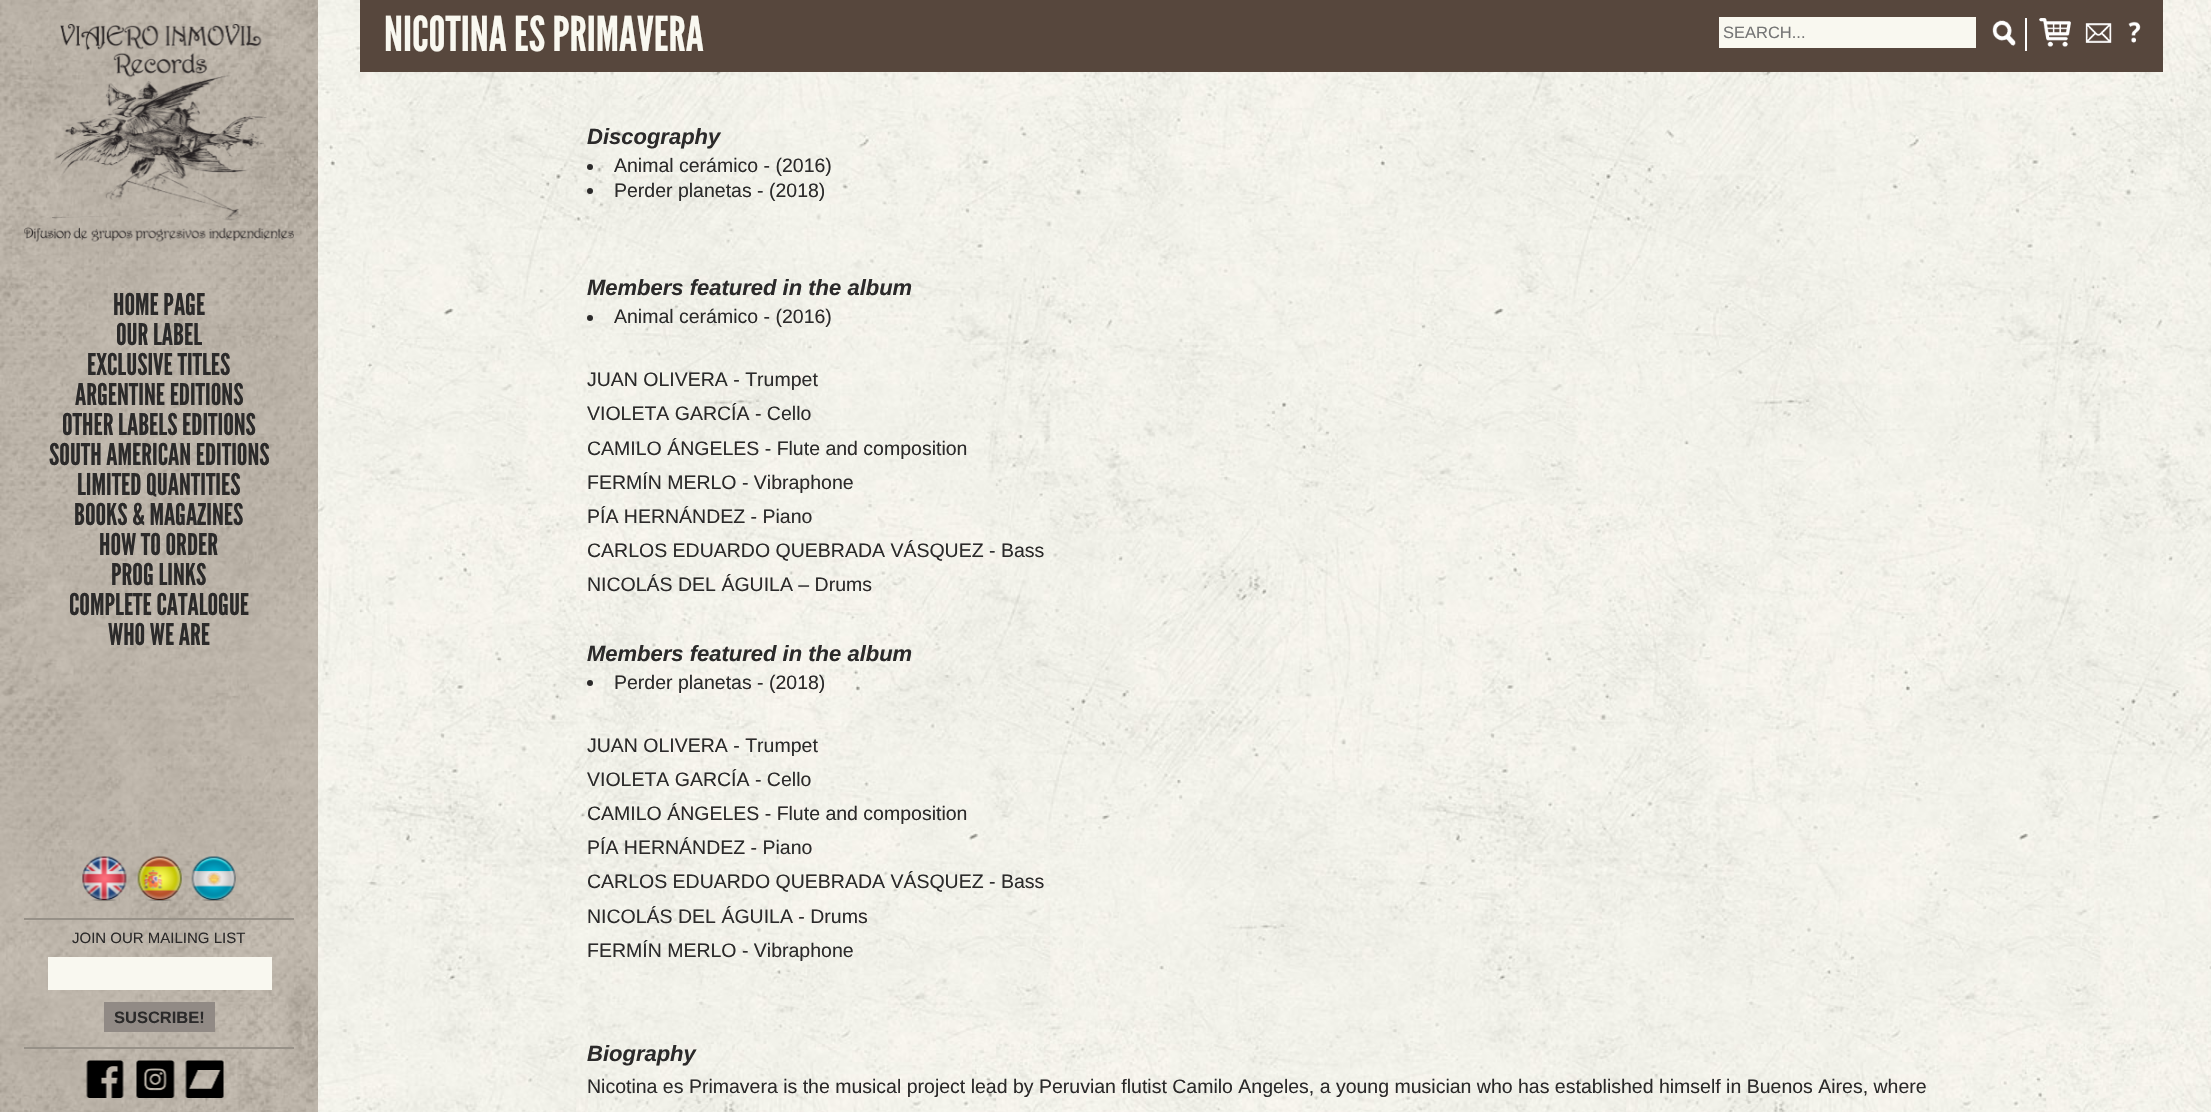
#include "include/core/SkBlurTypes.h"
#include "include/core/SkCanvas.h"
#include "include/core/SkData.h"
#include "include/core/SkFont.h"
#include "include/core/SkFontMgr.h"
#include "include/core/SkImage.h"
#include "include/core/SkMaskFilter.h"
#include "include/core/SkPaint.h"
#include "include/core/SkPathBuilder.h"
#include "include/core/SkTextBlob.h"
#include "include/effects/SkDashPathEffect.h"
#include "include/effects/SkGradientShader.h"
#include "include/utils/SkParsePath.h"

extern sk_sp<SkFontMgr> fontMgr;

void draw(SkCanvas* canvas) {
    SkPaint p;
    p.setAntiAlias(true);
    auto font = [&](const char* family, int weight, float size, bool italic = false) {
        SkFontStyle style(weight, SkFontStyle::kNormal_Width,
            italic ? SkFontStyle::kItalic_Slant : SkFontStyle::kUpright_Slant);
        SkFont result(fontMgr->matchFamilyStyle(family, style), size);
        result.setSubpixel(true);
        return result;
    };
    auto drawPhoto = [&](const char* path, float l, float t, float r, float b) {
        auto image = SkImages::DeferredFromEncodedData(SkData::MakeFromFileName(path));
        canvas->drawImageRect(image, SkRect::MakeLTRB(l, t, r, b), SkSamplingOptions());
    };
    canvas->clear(0xFFFFFFFF);
    drawPhoto("media/1.png", 318, 0, 2211, 1112);
    p.setColor(0xFF57473D);
    canvas->drawRect(SkRect::MakeLTRB(360, 0, 2163, 72), p);
    auto font1 = font("League Gothic", 400, 48);
    p.setColor(0xFFF9F8F0);
    canvas->drawString("NICOTINA ES PRIMAVERA", 384, 51, font1, p);
    canvas->drawRect(SkRect::MakeLTRB(1719, 17, 1976, 48), p);
    auto font2 = font("Liberation Sans", 400, 16.5f);
    p.setColor(0xFF757575);
    canvas->drawString("SEARCH...", 1723, 38, font2, p);
    drawPhoto("media/2.png", 1992, 20, 2016, 46);
    p.setColor(0xFFFFFFFF);
    canvas->drawRect(SkRect::MakeLTRB(2025, 18, 2027, 51), p);
    drawPhoto("media/3.png", 2039, 18, 2071, 47);
    drawPhoto("media/4.png", 2085, 23, 2112, 43);
    drawPhoto("media/5.png", 2128, 21, 2141, 43);
    drawPhoto("media/6.png", 0, 0, 318, 1112);
    drawPhoto("media/7.png", 24, 24, 294, 242);
    auto font3 = font("League Gothic", 400, 30);
    p.setColor(0xFF2B2A2A);
    {
        const struct { const char* s; float x, y; } items[] = {
            {"HOME PAGE", 113, 315},
            {"OUR LABEL", 116, 345},
            {"EXCLUSIVE TITLES", 87, 375},
            {"ARGENTINE EDITIONS", 75, 405},
            {"OTHER LABELS EDITIONS", 62, 435},
            {"SOUTH AMERICAN EDITIONS", 49, 465},
            {"LIMITED QUANTITIES", 77, 495},
            {"BOOKS & MAGAZINES", 74, 525},
            {"HOW TO ORDER", 99, 555},
            {"PROG LINKS", 111, 585},
            {"COMPLETE CATALOGUE", 69, 615},
            {"WHO WE ARE", 108, 645},
        };
        for (auto [s, x, y] : items) {
            canvas->drawString(s, x, y, font3, p);
        }
    }
    p.setColor(0xFF979188);
    canvas->drawRect(SkRect::MakeLTRB(24, 918, 294, 920), p);
    drawPhoto("media/8.png", 82, 856, 127, 901);
    drawPhoto("media/9.png", 137, 856, 182, 901);
    drawPhoto("media/10.png", 191, 856, 236, 901);
    auto font4 = font("Liberation Sans", 400, 15);
    p.setColor(0xFF2B2A2A);
    canvas->drawString("JOIN OUR MAILING LIST", 72, 943, font4, p);
    p.setColor(0xFFF9F8F0);
    canvas->drawRect(SkRect::MakeLTRB(48, 957, 272, 990), p);
    p.setColor(0xFF918A85);
    canvas->drawRect(SkRect::MakeLTRB(104, 1002, 215, 1032), p);
    auto font5 = font("Liberation Sans", 700, 16.5f);
    p.setColor(0xFF2B2A2A);
    canvas->drawString("SUSCRIBE!", 114, 1023, font5, p);
    p.setColor(0xFF979188);
    canvas->drawRect(SkRect::MakeLTRB(24, 1047, 294, 1049), p);
    drawPhoto("media/11.png", 86, 1060, 124, 1098);
    drawPhoto("media/12.png", 136, 1060, 175, 1098);
    drawPhoto("media/13.png", 185, 1060, 224, 1098);
    auto font6 = font("Liberation Sans", 700, 22, true);
    p.setColor(0xFF2B2A2A);
    canvas->drawString("Discography", 587, 144, font6, p);
    canvas->drawCircle(590, 167, 3, p);
    auto font7 = font("Liberation Sans", 400, 19.5f);
    canvas->drawString("Animal cerámico - (2016)", 614, 172, font7, p);
    canvas->drawCircle(590, 191, 3, p);
    canvas->drawString("Perder planetas - (2018)", 614, 197, font7, p);
    canvas->drawString("Members featured in the album", 587, 295, font6, p);
    canvas->drawCircle(590, 318, 3, p);
    {
        const struct { const char* s; float x, y; } items[] = {
            {"Animal cerámico - (2016)", 614, 323},
            {"JUAN OLIVERA - Trumpet", 587, 386},
            {"VIOLETA GARCÍA - Cello", 587, 420},
            {"CAMILO ÁNGELES - Flute and composition", 587, 455},
            {"FERMÍN MERLO - Vibraphone", 587, 489},
            {"PÍA HERNÁNDEZ - Piano", 587, 523},
            {"CARLOS EDUARDO QUEBRADA VÁSQUEZ - Bass", 587, 557},
            {"NICOLÁS DEL ÁGUILA – Drums", 587, 591},
        };
        for (auto [s, x, y] : items) {
            canvas->drawString(s, x, y, font7, p);
        }
    }
    canvas->drawString("Members featured in the album", 587, 661, font6, p);
    canvas->drawCircle(590, 683, 3, p);
    {
        const struct { const char* s; float x, y; } items[] = {
            {"Perder planetas - (2018)", 614, 689},
            {"JUAN OLIVERA - Trumpet", 587, 752},
            {"VIOLETA GARCÍA - Cello", 587, 786},
            {"CAMILO ÁNGELES - Flute and composition", 587, 820},
            {"PÍA HERNÁNDEZ - Piano", 587, 854},
            {"CARLOS EDUARDO QUEBRADA VÁSQUEZ - Bass", 587, 888},
            {"NICOLÁS DEL ÁGUILA - Drums", 587, 923},
            {"FERMÍN MERLO - Vibraphone", 587, 957},
        };
        for (auto [s, x, y] : items) {
            canvas->drawString(s, x, y, font7, p);
        }
    }
    canvas->drawString("Biography", 587, 1061, font6, p);
    canvas->drawString("Nicotina es Primavera is the musical project lead by Peruvian flutist Camilo Angeles, a young musician who has established himself in Buenos Aires, where", 587, 1093, font7, p);
}
